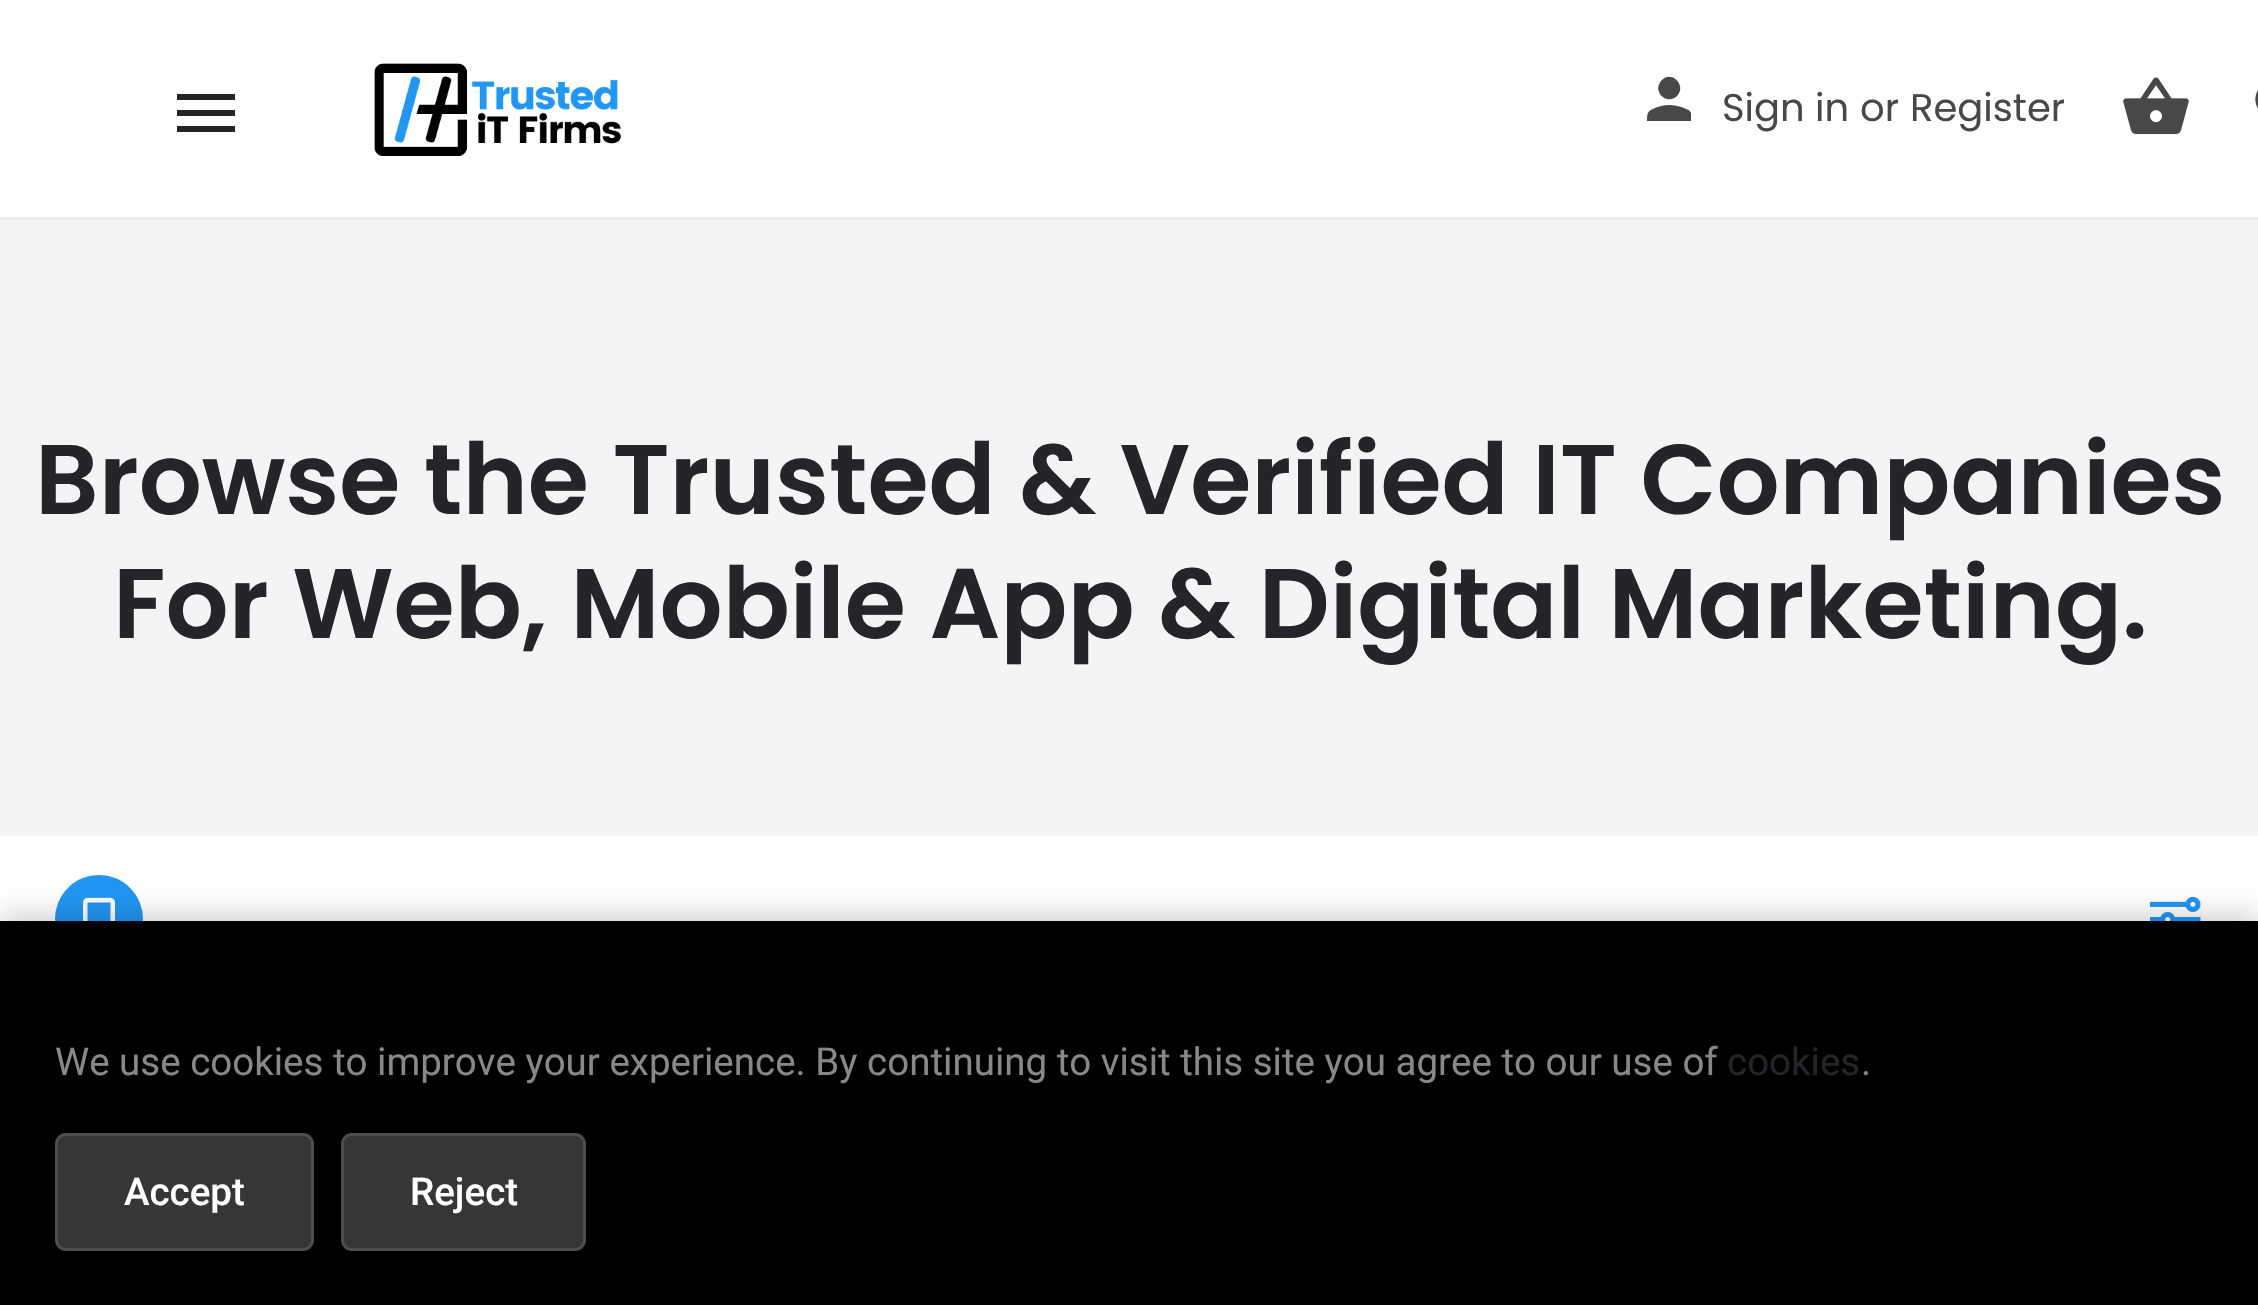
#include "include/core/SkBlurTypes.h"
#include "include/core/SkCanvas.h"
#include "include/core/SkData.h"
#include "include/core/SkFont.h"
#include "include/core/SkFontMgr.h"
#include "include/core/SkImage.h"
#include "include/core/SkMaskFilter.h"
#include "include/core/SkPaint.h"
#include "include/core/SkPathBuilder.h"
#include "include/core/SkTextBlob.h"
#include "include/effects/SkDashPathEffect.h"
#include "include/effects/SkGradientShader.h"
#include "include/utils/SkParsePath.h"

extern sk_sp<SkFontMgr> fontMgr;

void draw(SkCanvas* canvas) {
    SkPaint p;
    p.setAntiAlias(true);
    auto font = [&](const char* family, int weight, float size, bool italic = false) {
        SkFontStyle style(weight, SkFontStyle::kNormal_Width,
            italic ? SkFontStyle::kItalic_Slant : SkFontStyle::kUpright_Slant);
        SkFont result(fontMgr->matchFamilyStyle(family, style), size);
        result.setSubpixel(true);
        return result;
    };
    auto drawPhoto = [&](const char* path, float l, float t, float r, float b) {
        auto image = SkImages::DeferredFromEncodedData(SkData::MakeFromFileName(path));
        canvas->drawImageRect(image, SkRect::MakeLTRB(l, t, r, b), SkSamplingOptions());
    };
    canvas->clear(0xFFF4F4F4);
    p.setColor(0xFFFFFFFF);
    canvas->drawRect(SkRect::MakeLTRB(0, 0, 2258, 217), p);
    p.setColor(0xFF242429);
    canvas->drawPath(SkPathBuilder().moveTo(177, 94).lineTo(235, 94).lineTo(235, 100).lineTo(177, 100).close().moveTo(177, 116).lineTo(177, 110).lineTo(235, 110).lineTo(235, 116).close().moveTo(177, 132).lineTo(177, 126).lineTo(235, 126).lineTo(235, 132).close().detach(), p);
    drawPhoto("media/1.png", 374, 63, 621, 156);
    p.setColor(0xFF484848);
    canvas->drawPath(SkPathBuilder().moveTo(1655, 108).cubicTo(1664, 104, 1674, 104, 1684, 108).cubicTo(1686, 109, 1690, 110, 1691, 113).lineTo(1691, 121).lineTo(1647, 121).cubicTo(1647, 114, 1647, 111, 1655, 108).close().moveTo(1677, 96).cubicTo(1667, 106, 1651, 91, 1662, 80).cubicTo(1672, 70, 1687, 86, 1677, 96).close().detach(), p);
    auto font1 = font("Poppins", 400, 38.5f);
    {
        const struct { const char* s; float x, y; } items[] = {
            {"Sign in", 1722, 121},
            {"or", 1860, 121},
            {"Register", 1910, 121},
        };
        for (auto [s, x, y] : items) {
            canvas->drawString(s, x, y, font1, p);
        }
    }
    drawPhoto("media/2.png", 2123, 77, 2189, 135);
    canvas->drawPath(SkPathBuilder().moveTo(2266, 109).cubicTo(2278, 122, 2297, 103, 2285, 90).cubicTo(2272, 78, 2253, 97, 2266, 109).close().moveTo(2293, 113).lineTo(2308, 128).lineTo(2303, 133).lineTo(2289, 118).lineTo(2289, 115).lineTo(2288, 115).cubicTo(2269, 130, 2244, 104, 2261, 86).cubicTo(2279, 68, 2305, 94, 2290, 112).lineTo(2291, 113).close().detach(), p);
    p.setColor(0xFFEBEBEB);
    canvas->drawRect(SkRect::MakeLTRB(0, 217, 2258, 220), p);
    auto font2 = font("Poppins", 600, 99);
    p.setColor(0xFF242429);
    canvas->drawString("Browse the Trusted & Verified IT Companies", 35, 514, font2, p);
    canvas->drawString("For Web, Mobile App & Digital Marketing.", 113, 638, font2, p);
    p.setColor(0xFFFFFFFF);
    canvas->drawRect(SkRect::MakeLTRB(0, 836, 2258, 921), p);
    p.setColor(0xFF2196F3);
    canvas->drawCircle(99, 919, 44, p);
    drawPhoto("media/3.png", 83, 897, 115, 921);
    drawPhoto("media/4.png", 2150, 896, 2201, 921);
    p.setColor(0x33000000);
    p.setMaskFilter(SkMaskFilter::MakeBlur(kNormal_SkBlurStyle, 14));
    canvas->drawRect(SkRect::MakeLTRB(0, 916, 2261, 1301), p);
    p.setMaskFilter(nullptr);
    p.setColor(0xFF000000);
    canvas->drawRect(SkRect::MakeLTRB(0, 921, 2258, 1305), p);
    auto font3 = font("Roboto", 400, 38.5f);
    p.setColor(0xFF888888);
    canvas->drawString("We use cookies to improve your experience. By continuing to visit this site you agree to our use of", 55, 1075, font3, p);
    p.setColor(0xFF242429);
    canvas->drawString("cookies", 1727, 1075, font3, p);
    p.setColor(0xFF888888);
    canvas->drawString(".", 1861, 1075, font3, p);
    p.setColor(0xFF363636);
    canvas->drawRoundRect(SkRect::MakeLTRB(56.5f, 1134.5f, 312.5f, 1249.5f), 9.5f, 9.5f, p);
    p.setStyle(SkPaint::kStroke_Style);
    p.setStrokeWidth(3);
    p.setColor(0xFF4E4E4E);
    canvas->drawRoundRect(SkRect::MakeLTRB(56.5f, 1134.5f, 312.5f, 1249.5f), 9.5f, 9.5f, p);
    auto font4 = font("Roboto", 500, 38.5f);
    p.setStyle(SkPaint::kFill_Style);
    p.setColor(0xFFFFFFFF);
    canvas->drawString("Accept", 124, 1205, font4, p);
    p.setColor(0xFF363636);
    canvas->drawRoundRect(SkRect::MakeLTRB(342.5f, 1134.5f, 584.5f, 1249.5f), 9.5f, 9.5f, p);
    p.setStyle(SkPaint::kStroke_Style);
    p.setColor(0xFF4E4E4E);
    canvas->drawRoundRect(SkRect::MakeLTRB(342.5f, 1134.5f, 584.5f, 1249.5f), 9.5f, 9.5f, p);
    p.setStyle(SkPaint::kFill_Style);
    p.setColor(0xFFFFFFFF);
    canvas->drawString("Reject", 410, 1205, font4, p);
}
